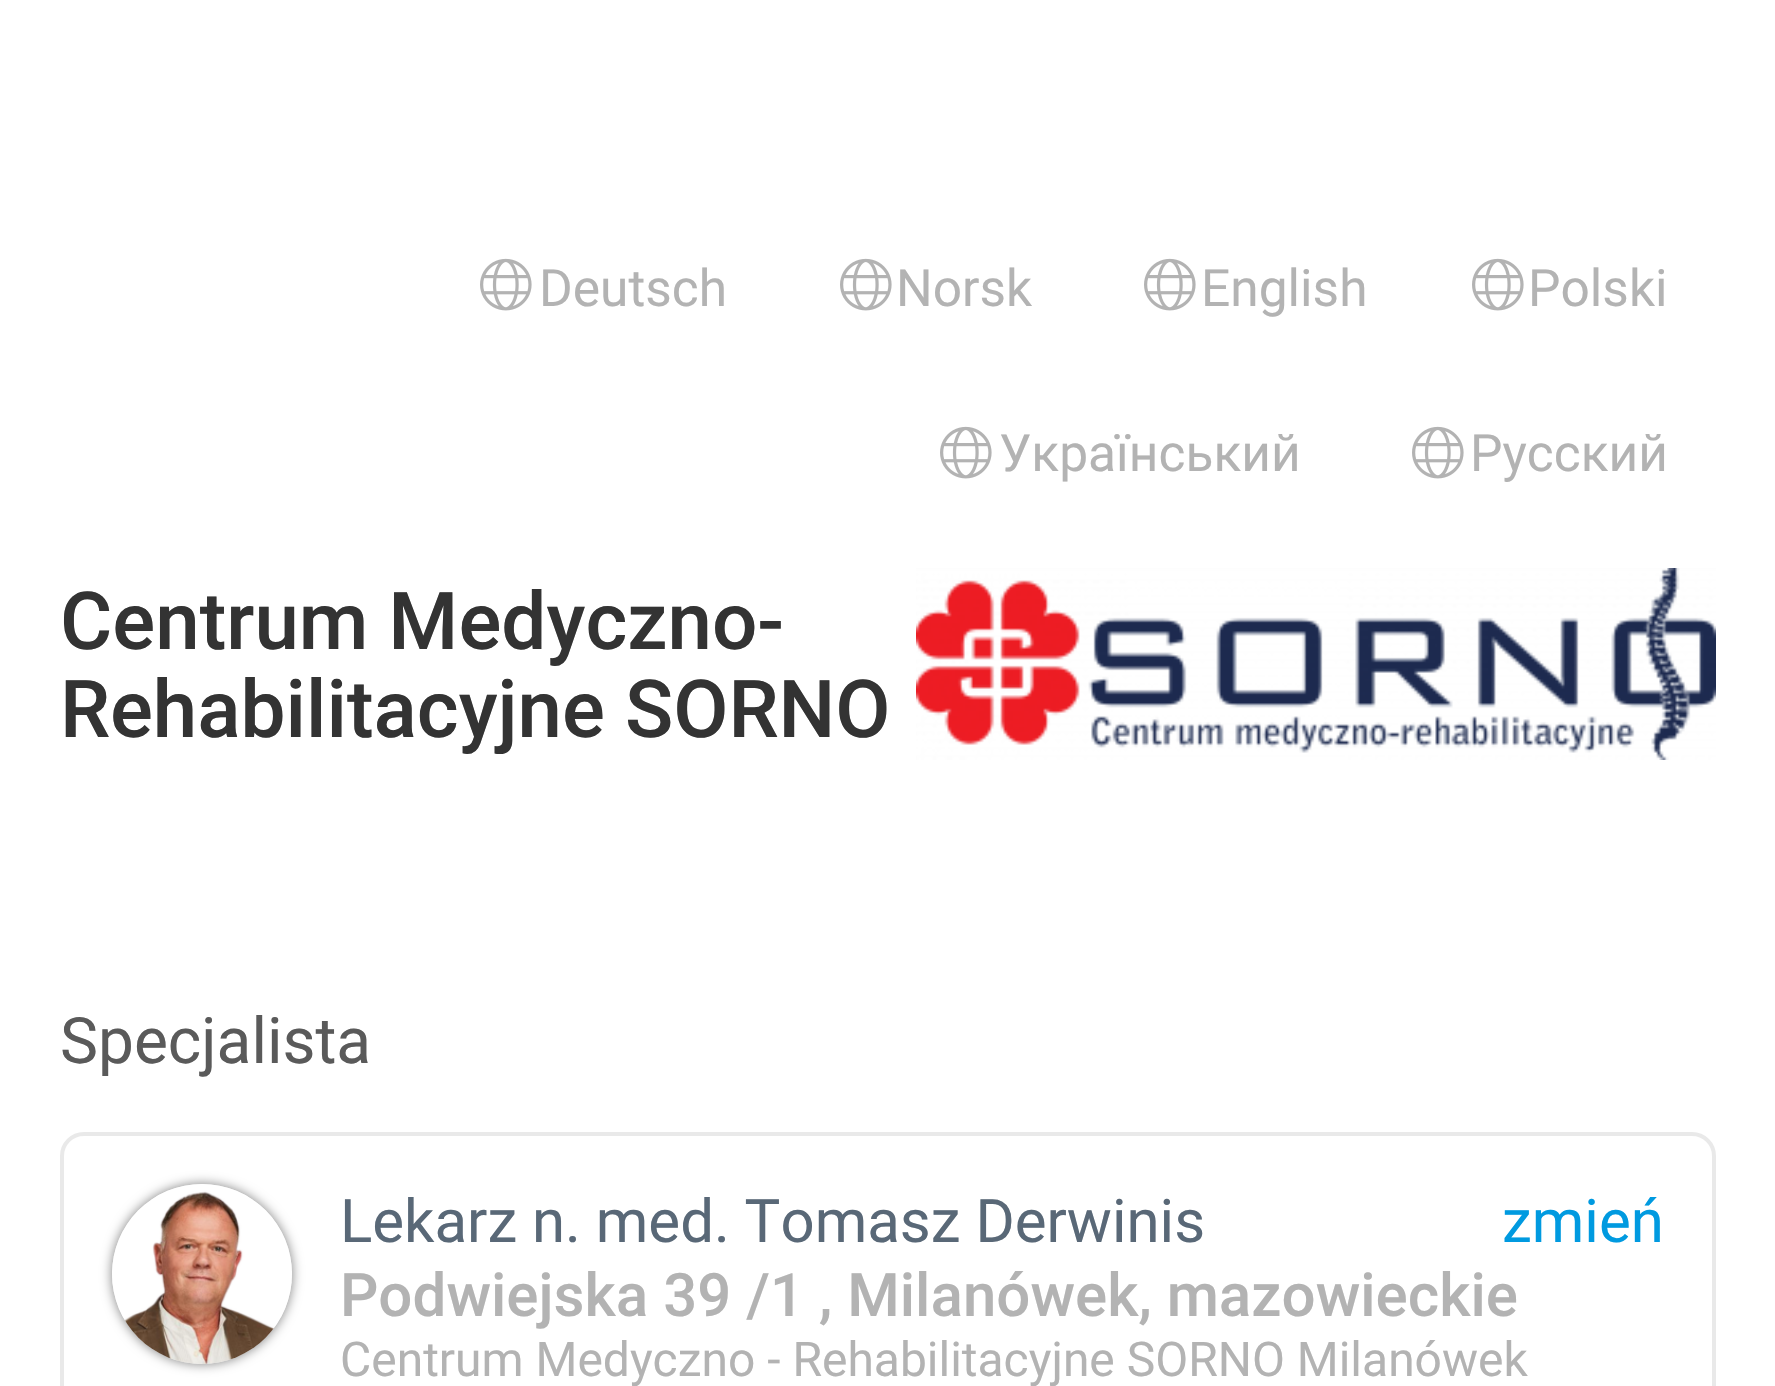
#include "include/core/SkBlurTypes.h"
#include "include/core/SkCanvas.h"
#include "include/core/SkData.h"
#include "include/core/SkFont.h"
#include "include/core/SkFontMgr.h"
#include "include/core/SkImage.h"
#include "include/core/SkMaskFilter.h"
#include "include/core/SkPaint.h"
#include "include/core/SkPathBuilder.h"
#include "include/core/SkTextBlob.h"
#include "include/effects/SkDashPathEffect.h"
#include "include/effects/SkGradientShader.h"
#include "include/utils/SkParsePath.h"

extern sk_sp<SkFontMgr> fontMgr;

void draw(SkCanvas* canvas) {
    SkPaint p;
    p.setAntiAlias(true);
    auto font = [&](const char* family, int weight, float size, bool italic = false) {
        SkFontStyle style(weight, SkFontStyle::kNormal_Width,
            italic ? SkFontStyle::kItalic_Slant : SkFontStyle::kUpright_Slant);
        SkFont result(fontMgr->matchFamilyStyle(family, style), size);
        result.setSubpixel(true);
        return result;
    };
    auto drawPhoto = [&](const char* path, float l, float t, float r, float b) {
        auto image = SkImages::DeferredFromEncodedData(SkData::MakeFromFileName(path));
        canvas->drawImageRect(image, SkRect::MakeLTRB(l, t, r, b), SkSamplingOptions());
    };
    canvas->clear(0xFFFFFFFF);
    drawPhoto("media/1.png", 480, 258, 532, 311);
    auto font1 = font("Roboto", 400, 51.5f);
    p.setColor(0xFFB3B3B3);
    canvas->drawString("Deutsch", 539, 306, font1, p);
    drawPhoto("media/1.png", 840, 258, 892, 311);
    canvas->drawString("Norsk", 896, 306, font1, p);
    drawPhoto("media/1.png", 1144, 258, 1196, 311);
    canvas->drawString("English", 1201, 306, font1, p);
    drawPhoto("media/1.png", 1472, 258, 1524, 311);
    canvas->drawString("Polski", 1528, 306, font1, p);
    drawPhoto("media/1.png", 940, 426, 992, 479);
    canvas->drawString("Український", 999, 471, font1, p);
    drawPhoto("media/1.png", 1412, 426, 1464, 479);
    canvas->drawString("Русский", 1470, 471, font1, p);
    auto font2 = font("Roboto", 500, 80);
    p.setColor(0xFF333333);
    canvas->drawString("Centrum Medyczno-", 60, 649, font2, p);
    canvas->drawString("Rehabilitacyjne SORNO", 60, 737, font2, p);
    drawPhoto("media/2.png", 916, 568, 1716, 760);
    auto font3 = font("Roboto", 400, 64);
    p.setColor(0xFF5A5A5A);
    canvas->drawString("Specjalista", 60, 1063, font3, p);
    p.setStyle(SkPaint::kStroke_Style);
    p.setStrokeWidth(4);
    p.setColor(0xFFE9E9E9);
    canvas->drawRoundRect(SkRect::MakeLTRB(62, 1134, 1714, 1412), 22, 22, p);
    p.setStyle(SkPaint::kFill_Style);
    p.setColor(0x80000000);
    p.setMaskFilter(SkMaskFilter::MakeBlur(kNormal_SkBlurStyle, 6));
    canvas->drawRoundRect(SkRect::MakeLTRB(112, 1184, 292, 1364), 90, 90, p);
    p.setMaskFilter(nullptr);
    p.setColor(0xFFEEEEEE);
    canvas->drawCircle(202, 1274, 90, p);
    drawPhoto("media/3.png", 112, 1184, 292, 1364);
    auto font4 = font("Roboto", 400, 60);
    p.setColor(0xFF596877);
    canvas->drawString("Lekarz n. med. Tomasz Derwinis", 340, 1242, font4, p);
    p.setColor(0xFF009AE0);
    canvas->drawString("zmień", 1502, 1242, font4, p);
    auto font5 = font("Roboto", 500, 60);
    p.setColor(0xFFB3B3B3);
    canvas->drawString("Podwiejska 39 /1 , Milanówek, mazowieckie", 340, 1316, font5, p);
    auto font6 = font("Roboto", 400, 48);
    canvas->drawString("Centrum Medyczno - Rehabilitacyjne SORNO Milanówek", 340, 1376, font6, p);
}
